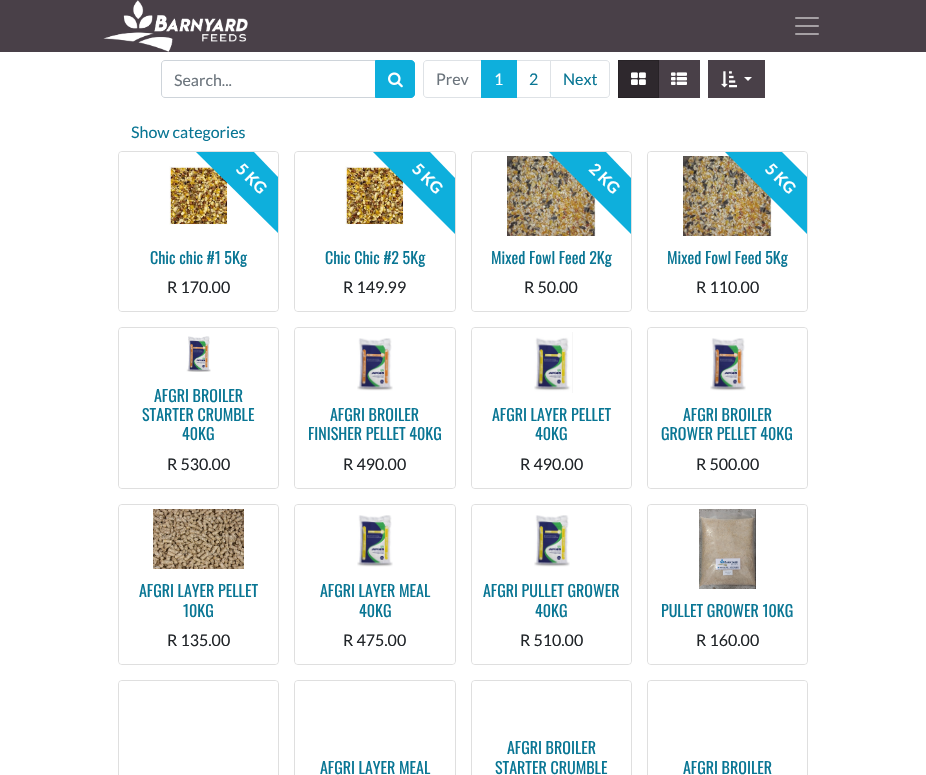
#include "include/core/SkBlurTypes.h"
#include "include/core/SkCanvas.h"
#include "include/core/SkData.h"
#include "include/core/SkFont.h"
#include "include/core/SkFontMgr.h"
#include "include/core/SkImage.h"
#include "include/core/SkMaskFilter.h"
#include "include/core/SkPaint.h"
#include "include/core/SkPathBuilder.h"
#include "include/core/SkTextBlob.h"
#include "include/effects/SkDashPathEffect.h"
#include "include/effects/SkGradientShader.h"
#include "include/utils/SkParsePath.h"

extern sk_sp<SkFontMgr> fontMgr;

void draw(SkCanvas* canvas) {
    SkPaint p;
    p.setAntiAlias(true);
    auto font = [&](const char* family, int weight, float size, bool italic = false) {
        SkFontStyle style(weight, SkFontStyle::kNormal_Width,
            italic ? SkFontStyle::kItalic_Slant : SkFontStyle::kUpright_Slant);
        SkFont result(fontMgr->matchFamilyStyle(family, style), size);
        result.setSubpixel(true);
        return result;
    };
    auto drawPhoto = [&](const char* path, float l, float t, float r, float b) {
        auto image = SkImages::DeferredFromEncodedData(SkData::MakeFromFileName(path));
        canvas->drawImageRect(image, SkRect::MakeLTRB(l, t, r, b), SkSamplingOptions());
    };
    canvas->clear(0xFFFFFFFF);
    p.setColor(0xFF494048);
    canvas->drawRect(SkRect::MakeLTRB(0, 0, 926, 52), p);
    drawPhoto("media/1.png", 103, 0, 248, 52);
    drawPhoto("media/2.png", 795, 17, 819, 35);
    p.setStyle(SkPaint::kStroke_Style);
    p.setStrokeWidth(1);
    p.setColor(0xFFCED4DA);
    canvas->drawPath(SkPathBuilder().moveTo(165, 60.5f).lineTo(375.5f, 60.5f).lineTo(375.5f, 97.5f).lineTo(165, 97.5f).cubicTo(163, 97.5f, 161.5f, 96, 161.5f, 94).lineTo(161.5f, 64).cubicTo(161.5f, 62, 163, 60.5f, 165, 60.5f).close().detach(), p);
    auto font1 = font("Lato", 400, 16);
    p.setStyle(SkPaint::kFill_Style);
    p.setColor(0xFF6C757D);
    canvas->drawString("Search...", 174, 86, font1, p);
    p.setColor(0xFF0EAFDC);
    canvas->drawPath(SkPathBuilder().moveTo(375.5f, 60.5f).lineTo(411, 60.5f).cubicTo(413, 60.5f, 414.5f, 62, 414.5f, 64).lineTo(414.5f, 94).cubicTo(414.5f, 96, 413, 97.5f, 411, 97.5f).lineTo(375.5f, 97.5f).close().detach(), p);
    p.setStyle(SkPaint::kStroke_Style);
    canvas->drawPath(SkPathBuilder().moveTo(375.5f, 60.5f).lineTo(411, 60.5f).cubicTo(413, 60.5f, 414.5f, 62, 414.5f, 64).lineTo(414.5f, 94).cubicTo(414.5f, 96, 413, 97.5f, 411, 97.5f).lineTo(375.5f, 97.5f).close().detach(), p);
    drawPhoto("media/3.png", 388, 72, 403, 88);
    p.setColor(0xFFDEE2E6);
    canvas->drawPath(SkPathBuilder().moveTo(427, 60.5f).lineTo(481.5f, 60.5f).lineTo(481.5f, 97.5f).lineTo(427, 97.5f).cubicTo(425, 97.5f, 423.5f, 96, 423.5f, 94).lineTo(423.5f, 64).cubicTo(423.5f, 62, 425, 60.5f, 427, 60.5f).close().detach(), p);
    p.setStyle(SkPaint::kFill_Style);
    p.setColor(0xFF6C757D);
    canvas->drawString("Prev", 436, 85, font1, p);
    p.setStyle(SkPaint::kStroke_Style);
    p.setColor(0xFFDEE2E6);
    canvas->drawRect(SkRect::MakeLTRB(516.5f, 60.5f, 550.5f, 97.5f), p);
    p.setStyle(SkPaint::kFill_Style);
    p.setColor(0xFF0EAFDC);
    canvas->drawRect(SkRect::MakeLTRB(481, 60, 517, 98), p);
    p.setColor(0xFFFFFFFF);
    canvas->drawString("1", 494, 85, font1, p);
    p.setColor(0xFF097694);
    canvas->drawString("2", 529, 85, font1, p);
    p.setColor(0xFFFFFFFF);
    canvas->drawPath(SkPathBuilder().moveTo(550.5f, 60.5f).lineTo(606, 60.5f).cubicTo(608, 60.5f, 609.5f, 62, 609.5f, 64).lineTo(609.5f, 94).cubicTo(609.5f, 96, 608, 97.5f, 606, 97.5f).lineTo(550.5f, 97.5f).close().detach(), p);
    p.setStyle(SkPaint::kStroke_Style);
    p.setColor(0xFFDEE2E6);
    canvas->drawPath(SkPathBuilder().moveTo(550.5f, 60.5f).lineTo(606, 60.5f).cubicTo(608, 60.5f, 609.5f, 62, 609.5f, 64).lineTo(609.5f, 94).cubicTo(609.5f, 96, 608, 97.5f, 606, 97.5f).lineTo(550.5f, 97.5f).close().detach(), p);
    p.setStyle(SkPaint::kFill_Style);
    p.setColor(0xFF097694);
    canvas->drawString("Next", 563, 85, font1, p);
    p.setColor(0xFF2E282D);
    canvas->drawRect(SkRect::MakeLTRB(618.5f, 60.5f, 658.5f, 97.5f), p);
    p.setStyle(SkPaint::kStroke_Style);
    p.setColor(0xFF272226);
    canvas->drawRect(SkRect::MakeLTRB(618.5f, 60.5f, 658.5f, 97.5f), p);
    drawPhoto("media/4.png", 631, 72, 646, 85);
    p.setStyle(SkPaint::kFill_Style);
    p.setColor(0xFF494048);
    canvas->drawRect(SkRect::MakeLTRB(659, 60, 700, 98), p);
    drawPhoto("media/5.png", 671, 72, 687, 85);
    canvas->drawRect(SkRect::MakeLTRB(708, 60, 765, 98), p);
    drawPhoto("media/6.png", 721, 71, 737, 88);
    p.setColor(0xFFFFFFFF);
    canvas->drawPath(SkPathBuilder().moveTo(744, 77).lineTo(752, 77).lineTo(748, 81).close().detach(), p);
    p.setColor(0xFF097694);
    canvas->drawString("Show categories", 131, 138, font1, p);
    p.setStyle(SkPaint::kStroke_Style);
    p.setColor(0xFFDFDFDF);
    canvas->drawRoundRect(SkRect::MakeLTRB(118.5f, 151.5f, 278.5f, 311.5f), 3.5f, 3.5f, p);
    p.setStyle(SkPaint::kFill_Style);
    p.setColor(0xE6FFFFFF);
    canvas->drawPath(SkPathBuilder().moveTo(122, 152).lineTo(275, 152).cubicTo(276.5f, 152, 278, 153.5f, 278, 155).lineTo(278, 240).lineTo(119, 240).lineTo(119, 155).cubicTo(119, 153.5f, 120.5f, 152, 122, 152).close().detach(), p);
    drawPhoto("media/7.png", 169, 166, 228, 225);
    p.setColor(0xFF0EAFDC);
    canvas->drawPath(SkPathBuilder().moveTo(278, 233).lineTo(196, 152).lineTo(254, 152).lineTo(278, 177).close().detach(), p);
    auto font2 = font("Lato", 700, 16);
    p.setColor(0xFFFFFFFF);
    canvas->save();
    canvas->rotate(45, 235, 170);
    canvas->drawString("5 KG", 235, 170, font2, p);
    canvas->restore();
    p.setColor(0xE6FFFFFF);
    canvas->drawPath(SkPathBuilder().moveTo(119, 240).lineTo(278, 240).lineTo(278, 308).cubicTo(278, 309.5f, 276.5f, 311, 275, 311).lineTo(122, 311).cubicTo(120.5f, 311, 119, 309.5f, 119, 308).close().detach(), p);
    auto font3 = font("Oswald", 400, 16);
    p.setColor(0xFF097694);
    canvas->drawString("Chic chic #1 5Kg", 150, 264, font3, p);
    p.setColor(0xFF212529);
    canvas->drawString("R 170.00", 167, 293, font1, p);
    p.setStyle(SkPaint::kStroke_Style);
    p.setColor(0xFFDFDFDF);
    canvas->drawRoundRect(SkRect::MakeLTRB(294.5f, 151.5f, 455.5f, 311.5f), 3.5f, 3.5f, p);
    p.setStyle(SkPaint::kFill_Style);
    p.setColor(0xE6FFFFFF);
    canvas->drawPath(SkPathBuilder().moveTo(298, 152).lineTo(452, 152).cubicTo(453.5f, 152, 455, 153.5f, 455, 155).lineTo(455, 240).lineTo(295, 240).lineTo(295, 155).cubicTo(295, 153.5f, 296.5f, 152, 298, 152).close().detach(), p);
    drawPhoto("media/7.png", 345, 166, 404, 225);
    p.setColor(0xFF0EAFDC);
    canvas->drawPath(SkPathBuilder().moveTo(455, 234).lineTo(373, 152).lineTo(430, 152).lineTo(455, 178).close().detach(), p);
    p.setColor(0xFFFFFFFF);
    canvas->save();
    canvas->rotate(45, 411, 170);
    canvas->drawString("5 KG", 411, 170, font2, p);
    canvas->restore();
    p.setColor(0xE6FFFFFF);
    canvas->drawPath(SkPathBuilder().moveTo(295, 240).lineTo(455, 240).lineTo(455, 308).cubicTo(455, 309.5f, 453.5f, 311, 452, 311).lineTo(298, 311).cubicTo(296.5f, 311, 295, 309.5f, 295, 308).close().detach(), p);
    p.setColor(0xFF097694);
    canvas->drawString("Chic Chic #2 5Kg", 325, 264, font3, p);
    p.setColor(0xFF212529);
    canvas->drawString("R 149.99", 343, 293, font1, p);
    p.setStyle(SkPaint::kStroke_Style);
    p.setColor(0xFFDFDFDF);
    canvas->drawRoundRect(SkRect::MakeLTRB(471.5f, 151.5f, 631.5f, 311.5f), 3.5f, 3.5f, p);
    p.setStyle(SkPaint::kFill_Style);
    p.setColor(0xE6FFFFFF);
    canvas->drawPath(SkPathBuilder().moveTo(475, 152).lineTo(628, 152).cubicTo(629.5f, 152, 631, 153.5f, 631, 155).lineTo(631, 240).lineTo(472, 240).lineTo(472, 155).cubicTo(472, 153.5f, 473.5f, 152, 475, 152).close().detach(), p);
    drawPhoto("media/8.png", 507, 156, 596, 236);
    p.setColor(0xFF0EAFDC);
    canvas->drawPath(SkPathBuilder().moveTo(631, 234).lineTo(549, 152).lineTo(606, 152).lineTo(631, 178).close().detach(), p);
    p.setColor(0xFFFFFFFF);
    canvas->save();
    canvas->rotate(45, 588, 170);
    canvas->drawString("2 KG", 588, 170, font2, p);
    canvas->restore();
    p.setColor(0xE6FFFFFF);
    canvas->drawPath(SkPathBuilder().moveTo(472, 240).lineTo(631, 240).lineTo(631, 308).cubicTo(631, 309.5f, 629.5f, 311, 628, 311).lineTo(475, 311).cubicTo(473.5f, 311, 472, 309.5f, 472, 308).close().detach(), p);
    p.setColor(0xFF097694);
    canvas->drawString("Mixed Fowl Feed 2Kg", 491, 264, font3, p);
    p.setColor(0xFF212529);
    canvas->drawString("R 50.00", 524, 293, font1, p);
    p.setStyle(SkPaint::kStroke_Style);
    p.setColor(0xFFDFDFDF);
    canvas->drawRoundRect(SkRect::MakeLTRB(647.5f, 151.5f, 807.5f, 311.5f), 3.5f, 3.5f, p);
    p.setStyle(SkPaint::kFill_Style);
    p.setColor(0xE6FFFFFF);
    canvas->drawPath(SkPathBuilder().moveTo(651, 152).lineTo(804, 152).cubicTo(805.5f, 152, 807, 153.5f, 807, 155).lineTo(807, 240).lineTo(648, 240).lineTo(648, 155).cubicTo(648, 153.5f, 649.5f, 152, 651, 152).close().detach(), p);
    drawPhoto("media/8.png", 683, 156, 772, 236);
    p.setColor(0xFF0EAFDC);
    canvas->drawPath(SkPathBuilder().moveTo(807, 234).lineTo(725, 152).lineTo(782, 152).lineTo(807, 177).close().detach(), p);
    p.setColor(0xFFFFFFFF);
    canvas->save();
    canvas->rotate(45, 764, 170);
    canvas->drawString("5 KG", 764, 170, font2, p);
    canvas->restore();
    p.setColor(0xE6FFFFFF);
    canvas->drawPath(SkPathBuilder().moveTo(648, 240).lineTo(807, 240).lineTo(807, 308).cubicTo(807, 309.5f, 805.5f, 311, 804, 311).lineTo(651, 311).cubicTo(649.5f, 311, 648, 309.5f, 648, 308).close().detach(), p);
    p.setColor(0xFF097694);
    canvas->drawString("Mixed Fowl Feed 5Kg", 667, 264, font3, p);
    p.setColor(0xFF212529);
    canvas->drawString("R 110.00", 696, 293, font1, p);
    p.setStyle(SkPaint::kStroke_Style);
    p.setColor(0xFFDFDFDF);
    canvas->drawRoundRect(SkRect::MakeLTRB(118.5f, 327.5f, 278.5f, 488.5f), 3.5f, 3.5f, p);
    p.setStyle(SkPaint::kFill_Style);
    p.setColor(0xE6FFFFFF);
    canvas->drawPath(SkPathBuilder().moveTo(122, 328).lineTo(275, 328).cubicTo(276.5f, 328, 278, 329.5f, 278, 331).lineTo(278, 378).lineTo(119, 378).lineTo(119, 331).cubicTo(119, 329.5f, 120.5f, 328, 122, 328).close().detach(), p);
    drawPhoto("media/9.png", 186, 336, 211, 372);
    canvas->drawPath(SkPathBuilder().moveTo(119, 378).lineTo(278, 378).lineTo(278, 485).cubicTo(278, 486.5f, 276.5f, 488, 275, 488).lineTo(122, 488).cubicTo(120.5f, 488, 119, 486.5f, 119, 485).close().detach(), p);
    p.setColor(0xFF097694);
    {
        const struct { const char* s; float x, y; } items[] = {
            {"AFGRI BROILER", 154, 402},
            {"STARTER CRUMBLE", 142, 421},
            {"40KG", 182, 440},
        };
        for (auto [s, x, y] : items) {
            canvas->drawString(s, x, y, font3, p);
        }
    }
    p.setColor(0xFF212529);
    canvas->drawString("R 530.00", 167, 470, font1, p);
    p.setStyle(SkPaint::kStroke_Style);
    p.setColor(0xFFDFDFDF);
    canvas->drawRoundRect(SkRect::MakeLTRB(294.5f, 327.5f, 455.5f, 488.5f), 3.5f, 3.5f, p);
    p.setStyle(SkPaint::kFill_Style);
    p.setColor(0xE6FFFFFF);
    canvas->drawPath(SkPathBuilder().moveTo(298, 328).lineTo(452, 328).cubicTo(453.5f, 328, 455, 329.5f, 455, 331).lineTo(455, 397).lineTo(295, 397).lineTo(295, 331).cubicTo(295, 329.5f, 296.5f, 328, 298, 328).close().detach(), p);
    drawPhoto("media/10.png", 357, 338, 393, 391);
    canvas->drawPath(SkPathBuilder().moveTo(295, 397).lineTo(455, 397).lineTo(455, 485).cubicTo(455, 486.5f, 453.5f, 488, 452, 488).lineTo(298, 488).cubicTo(296.5f, 488, 295, 486.5f, 295, 485).close().detach(), p);
    p.setColor(0xFF097694);
    canvas->drawString("AFGRI BROILER", 330, 421, font3, p);
    canvas->drawString("FINISHER PELLET 40KG", 308, 440, font3, p);
    p.setColor(0xFF212529);
    canvas->drawString("R 490.00", 343, 470, font1, p);
    p.setStyle(SkPaint::kStroke_Style);
    p.setColor(0xFFDFDFDF);
    canvas->drawRoundRect(SkRect::MakeLTRB(471.5f, 327.5f, 631.5f, 488.5f), 3.5f, 3.5f, p);
    p.setStyle(SkPaint::kFill_Style);
    p.setColor(0xE6FFFFFF);
    canvas->drawPath(SkPathBuilder().moveTo(475, 328).lineTo(628, 328).cubicTo(629.5f, 328, 631, 329.5f, 631, 331).lineTo(631, 397).lineTo(472, 397).lineTo(472, 331).cubicTo(472, 329.5f, 473.5f, 328, 475, 328).close().detach(), p);
    drawPhoto("media/11.png", 534, 332, 573, 393);
    canvas->drawPath(SkPathBuilder().moveTo(472, 397).lineTo(631, 397).lineTo(631, 485).cubicTo(631, 486.5f, 629.5f, 488, 628, 488).lineTo(475, 488).cubicTo(473.5f, 488, 472, 486.5f, 472, 485).close().detach(), p);
    p.setColor(0xFF097694);
    canvas->drawString("AFGRI LAYER PELLET", 492, 421, font3, p);
    canvas->drawString("40KG", 535, 440, font3, p);
    p.setColor(0xFF212529);
    canvas->drawString("R 490.00", 520, 470, font1, p);
    p.setStyle(SkPaint::kStroke_Style);
    p.setColor(0xFFDFDFDF);
    canvas->drawRoundRect(SkRect::MakeLTRB(647.5f, 327.5f, 807.5f, 488.5f), 3.5f, 3.5f, p);
    p.setStyle(SkPaint::kFill_Style);
    p.setColor(0xE6FFFFFF);
    canvas->drawPath(SkPathBuilder().moveTo(651, 328).lineTo(804, 328).cubicTo(805.5f, 328, 807, 329.5f, 807, 331).lineTo(807, 397).lineTo(648, 397).lineTo(648, 331).cubicTo(648, 329.5f, 649.5f, 328, 651, 328).close().detach(), p);
    drawPhoto("media/10.png", 710, 338, 746, 391);
    canvas->drawPath(SkPathBuilder().moveTo(648, 397).lineTo(807, 397).lineTo(807, 485).cubicTo(807, 486.5f, 805.5f, 488, 804, 488).lineTo(651, 488).cubicTo(649.5f, 488, 648, 486.5f, 648, 485).close().detach(), p);
    p.setColor(0xFF097694);
    canvas->drawString("AFGRI BROILER", 683, 421, font3, p);
    canvas->drawString("GROWER PELLET 40KG", 661, 440, font3, p);
    p.setColor(0xFF212529);
    canvas->drawString("R 500.00", 696, 470, font1, p);
    p.setStyle(SkPaint::kStroke_Style);
    p.setColor(0xFFDFDFDF);
    canvas->drawRoundRect(SkRect::MakeLTRB(118.5f, 504.5f, 278.5f, 664.5f), 3.5f, 3.5f, p);
    p.setStyle(SkPaint::kFill_Style);
    p.setColor(0xE6FFFFFF);
    canvas->drawPath(SkPathBuilder().moveTo(122, 505).lineTo(275, 505).cubicTo(276.5f, 505, 278, 506.5f, 278, 508).lineTo(278, 573).lineTo(119, 573).lineTo(119, 508).cubicTo(119, 506.5f, 120.5f, 505, 122, 505).close().detach(), p);
    drawPhoto("media/12.png", 153, 509, 244, 569);
    canvas->drawPath(SkPathBuilder().moveTo(119, 573).lineTo(278, 573).lineTo(278, 661).cubicTo(278, 662.5f, 276.5f, 664, 275, 664).lineTo(122, 664).cubicTo(120.5f, 664, 119, 662.5f, 119, 661).close().detach(), p);
    p.setColor(0xFF097694);
    canvas->drawString("AFGRI LAYER PELLET", 139, 597, font3, p);
    canvas->drawString("10KG", 183, 617, font3, p);
    p.setColor(0xFF212529);
    canvas->drawString("R 135.00", 167, 646, font1, p);
    p.setStyle(SkPaint::kStroke_Style);
    p.setColor(0xFFDFDFDF);
    canvas->drawRoundRect(SkRect::MakeLTRB(294.5f, 504.5f, 455.5f, 664.5f), 3.5f, 3.5f, p);
    p.setStyle(SkPaint::kFill_Style);
    p.setColor(0xE6FFFFFF);
    canvas->drawPath(SkPathBuilder().moveTo(298, 505).lineTo(452, 505).cubicTo(453.5f, 505, 455, 506.5f, 455, 508).lineTo(455, 573).lineTo(295, 573).lineTo(295, 508).cubicTo(295, 506.5f, 296.5f, 505, 298, 505).close().detach(), p);
    drawPhoto("media/13.png", 357, 515, 393, 567);
    canvas->drawPath(SkPathBuilder().moveTo(295, 573).lineTo(455, 573).lineTo(455, 661).cubicTo(455, 662.5f, 453.5f, 664, 452, 664).lineTo(298, 664).cubicTo(296.5f, 664, 295, 662.5f, 295, 661).close().detach(), p);
    p.setColor(0xFF097694);
    canvas->drawString("AFGRI LAYER MEAL", 320, 597, font3, p);
    canvas->drawString("40KG", 359, 617, font3, p);
    p.setColor(0xFF212529);
    canvas->drawString("R 475.00", 343, 646, font1, p);
    p.setStyle(SkPaint::kStroke_Style);
    p.setColor(0xFFDFDFDF);
    canvas->drawRoundRect(SkRect::MakeLTRB(471.5f, 504.5f, 631.5f, 664.5f), 3.5f, 3.5f, p);
    p.setStyle(SkPaint::kFill_Style);
    p.setColor(0xE6FFFFFF);
    canvas->drawPath(SkPathBuilder().moveTo(475, 505).lineTo(628, 505).cubicTo(629.5f, 505, 631, 506.5f, 631, 508).lineTo(631, 573).lineTo(472, 573).lineTo(472, 508).cubicTo(472, 506.5f, 473.5f, 505, 475, 505).close().detach(), p);
    drawPhoto("media/14.png", 534, 515, 570, 567);
    canvas->drawPath(SkPathBuilder().moveTo(472, 573).lineTo(631, 573).lineTo(631, 661).cubicTo(631, 662.5f, 629.5f, 664, 628, 664).lineTo(475, 664).cubicTo(473.5f, 664, 472, 662.5f, 472, 661).close().detach(), p);
    p.setColor(0xFF097694);
    canvas->drawString("AFGRI PULLET GROWER", 483, 597, font3, p);
    canvas->drawString("40KG", 535, 617, font3, p);
    p.setColor(0xFF212529);
    canvas->drawString("R 510.00", 520, 646, font1, p);
    p.setStyle(SkPaint::kStroke_Style);
    p.setColor(0xFFDFDFDF);
    canvas->drawRoundRect(SkRect::MakeLTRB(647.5f, 504.5f, 807.5f, 664.5f), 3.5f, 3.5f, p);
    p.setStyle(SkPaint::kFill_Style);
    p.setColor(0xE6FFFFFF);
    canvas->drawPath(SkPathBuilder().moveTo(651, 505).lineTo(804, 505).cubicTo(805.5f, 505, 807, 506.5f, 807, 508).lineTo(807, 593).lineTo(648, 593).lineTo(648, 508).cubicTo(648, 506.5f, 649.5f, 505, 651, 505).close().detach(), p);
    drawPhoto("media/15.png", 699, 509, 756, 589);
    canvas->drawPath(SkPathBuilder().moveTo(648, 593).lineTo(807, 593).lineTo(807, 661).cubicTo(807, 662.5f, 805.5f, 664, 804, 664).lineTo(651, 664).cubicTo(649.5f, 664, 648, 662.5f, 648, 661).close().detach(), p);
    p.setColor(0xFF097694);
    canvas->drawString("PULLET GROWER 10KG", 661, 617, font3, p);
    p.setColor(0xFF212529);
    canvas->drawString("R 160.00", 696, 646, font1, p);
    p.setStyle(SkPaint::kStroke_Style);
    p.setColor(0xFFDFDFDF);
    canvas->drawRoundRect(SkRect::MakeLTRB(118.5f, 680.5f, 278.5f, 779.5f), 3.5f, 3.5f, p);
    p.setStyle(SkPaint::kFill_Style);
    p.setColor(0xE6FFFFFF);
    canvas->drawPath(SkPathBuilder().moveTo(122, 681).lineTo(275, 681).cubicTo(276.5f, 681, 278, 682.5f, 278, 684).lineTo(278, 769).lineTo(119, 769).lineTo(119, 684).cubicTo(119, 682.5f, 120.5f, 681, 122, 681).close().detach(), p);
    p.setStyle(SkPaint::kStroke_Style);
    p.setColor(0xFFDFDFDF);
    canvas->drawRoundRect(SkRect::MakeLTRB(294.5f, 680.5f, 455.5f, 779.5f), 3.5f, 3.5f, p);
    p.setStyle(SkPaint::kFill_Style);
    p.setColor(0xE6FFFFFF);
    canvas->drawPath(SkPathBuilder().moveTo(298, 681).lineTo(452, 681).cubicTo(453.5f, 681, 455, 682.5f, 455, 684).lineTo(455, 750).lineTo(295, 750).lineTo(295, 684).cubicTo(295, 682.5f, 296.5f, 681, 298, 681).close().detach(), p);
    p.setColor(0xFF097694);
    canvas->drawString("AFGRI LAYER MEAL", 320, 774, font3, p);
    p.setStyle(SkPaint::kStroke_Style);
    p.setColor(0xFFDFDFDF);
    canvas->drawRoundRect(SkRect::MakeLTRB(471.5f, 680.5f, 631.5f, 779.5f), 3.5f, 3.5f, p);
    p.setStyle(SkPaint::kFill_Style);
    p.setColor(0xE6FFFFFF);
    canvas->drawPath(SkPathBuilder().moveTo(475, 681).lineTo(628, 681).cubicTo(629.5f, 681, 631, 682.5f, 631, 684).lineTo(631, 730).lineTo(472, 730).lineTo(472, 684).cubicTo(472, 682.5f, 473.5f, 681, 475, 681).close().detach(), p);
    p.setColor(0xFF097694);
    canvas->drawString("AFGRI BROILER", 507, 754, font3, p);
    canvas->drawString("STARTER CRUMBLE", 495, 774, font3, p);
    p.setStyle(SkPaint::kStroke_Style);
    p.setColor(0xFFDFDFDF);
    canvas->drawRoundRect(SkRect::MakeLTRB(647.5f, 680.5f, 807.5f, 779.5f), 3.5f, 3.5f, p);
    p.setStyle(SkPaint::kFill_Style);
    p.setColor(0xE6FFFFFF);
    canvas->drawPath(SkPathBuilder().moveTo(651, 681).lineTo(804, 681).cubicTo(805.5f, 681, 807, 682.5f, 807, 684).lineTo(807, 750).lineTo(648, 750).lineTo(648, 684).cubicTo(648, 682.5f, 649.5f, 681, 651, 681).close().detach(), p);
    p.setColor(0xFF097694);
    canvas->drawString("AFGRI BROILER", 683, 774, font3, p);
}
